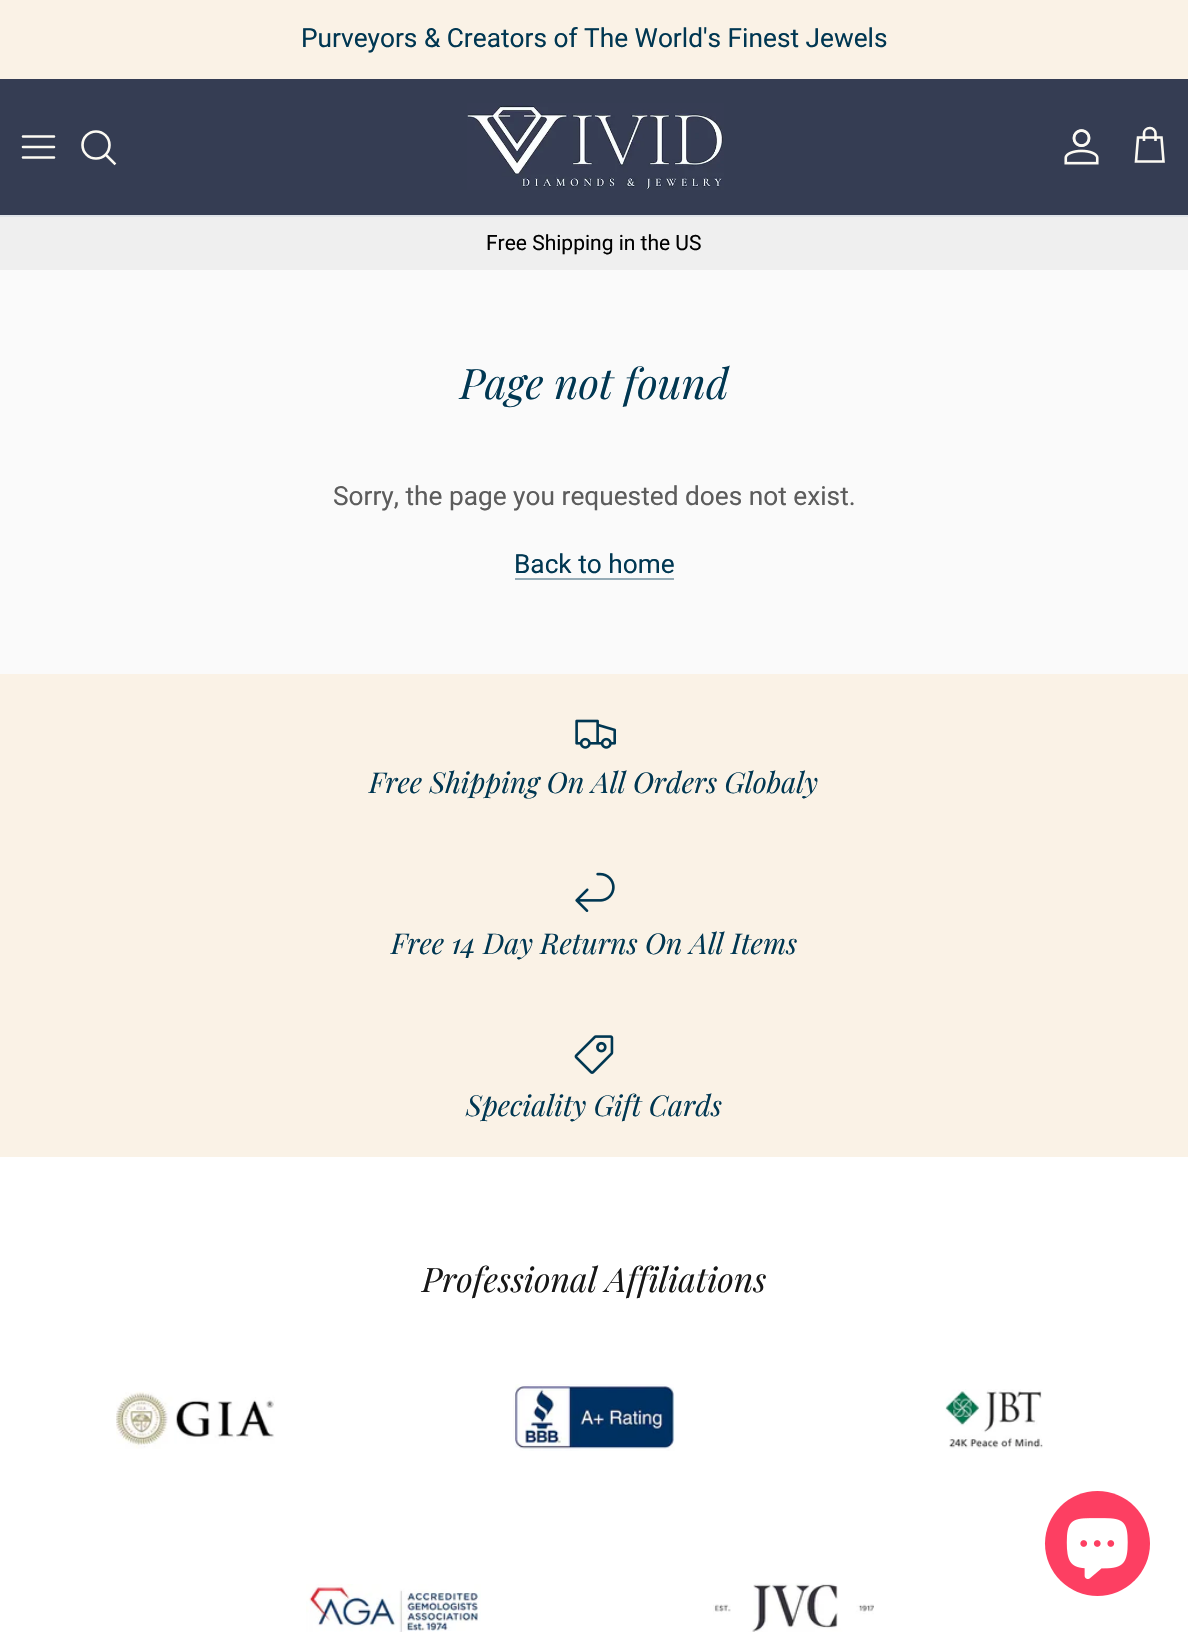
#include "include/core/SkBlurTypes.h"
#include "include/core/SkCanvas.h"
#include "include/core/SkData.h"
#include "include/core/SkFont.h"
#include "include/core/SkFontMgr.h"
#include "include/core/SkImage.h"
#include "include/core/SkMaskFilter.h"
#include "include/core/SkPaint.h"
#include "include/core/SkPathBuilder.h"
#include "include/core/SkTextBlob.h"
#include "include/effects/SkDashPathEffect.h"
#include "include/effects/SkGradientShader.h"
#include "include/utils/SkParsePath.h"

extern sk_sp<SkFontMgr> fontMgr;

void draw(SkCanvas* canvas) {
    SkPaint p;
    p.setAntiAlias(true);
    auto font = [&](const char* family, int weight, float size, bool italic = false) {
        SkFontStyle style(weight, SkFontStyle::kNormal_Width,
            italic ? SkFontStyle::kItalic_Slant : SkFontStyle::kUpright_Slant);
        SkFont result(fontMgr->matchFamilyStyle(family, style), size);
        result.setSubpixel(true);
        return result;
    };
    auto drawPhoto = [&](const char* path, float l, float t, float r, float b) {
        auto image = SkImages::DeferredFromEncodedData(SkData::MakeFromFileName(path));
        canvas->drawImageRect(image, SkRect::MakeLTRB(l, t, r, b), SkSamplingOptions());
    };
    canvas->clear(0xFFFAFAFA);
    p.setColor(0xFFFAF2E6);
    canvas->drawRect(SkRect::MakeLTRB(0, 0, 1188, 79), p);
    auto font1 = font("Roboto", 400, 26.25f);
    p.setColor(0xFF003752);
    canvas->drawString("Purveyors & Creators of The World's Finest Jewels", 301, 47, font1, p);
    p.setColor(0xFF353D53);
    canvas->drawRect(SkRect::MakeLTRB(0, 79, 1188, 215), p);
    p.setColor(0xFFDFE3E8);
    canvas->drawRect(SkRect::MakeLTRB(0, 215, 1188, 217), p);
    p.setStyle(SkPaint::kStroke_Style);
    p.setStrokeWidth(2.6f);
    p.setStrokeCap(SkPaint::kRound_Cap);
    p.setStrokeJoin(SkPaint::kRound_Join);
    p.setColor(0xFFFCFAF3);
    canvas->drawPath(SkPathBuilder().moveTo(23, 147).lineTo(54, 147).moveTo(23, 136.5f).lineTo(54, 136.5f).moveTo(23, 157.5f).lineTo(54, 157.5f).detach(), p);
    p.setStrokeCap(SkPaint::kButt_Cap);
    p.setStrokeJoin(SkPaint::kMiter_Join);
    canvas->drawCircle(96, 145, 13.5f, p);
    p.setStrokeCap(SkPaint::kSquare_Cap);
    canvas->drawPath(SkPathBuilder().moveTo(106.5f, 155.5f).lineTo(114.5f, 163.5f).detach(), p);
    drawPhoto("media/1.png", 467, 103, 724, 190);
    drawPhoto("media/2.png", 1064, 129, 1099, 165);
    p.setStrokeCap(SkPaint::kButt_Cap);
    canvas->drawPath(SkPathBuilder().moveTo(1155.5f, 141).lineTo(1155.5f, 133.5f).cubicTo(1155.5f, 130.5f, 1153, 128, 1150, 128).cubicTo(1146.5f, 128, 1144, 130.5f, 1144, 133.5f).lineTo(1144, 141).moveTo(1138, 137.5f).lineTo(1161.5f, 137.5f).lineTo(1163.5f, 161.5f).lineTo(1136, 161.5f).close().detach(), p);
    p.setStyle(SkPaint::kFill_Style);
    p.setColor(0xFFEFEFEF);
    canvas->drawRect(SkRect::MakeLTRB(0, 217, 1188, 270), p);
    auto font2 = font("Roboto", 400, 21);
    p.setColor(0xFF000000);
    canvas->drawString("Free Shipping in the US", 486, 250, font2, p);
    auto font3 = font("Playfair Display", 400, 42, true);
    p.setColor(0xFF003752);
    canvas->drawString("Page not found", 460, 399, font3, p);
    p.setColor(0xFF5C5C5C);
    canvas->drawString("Sorry, the page you requested does not exist.", 333, 505, font1, p);
    p.setColor(0xFF003752);
    canvas->drawString("Back to home", 514, 573, font1, p);
    p.setColor(0xFF96ACB7);
    canvas->drawRect(SkRect::MakeLTRB(515, 578, 674, 580), p);
    p.setColor(0xFFFAF2E6);
    canvas->drawRect(SkRect::MakeLTRB(0, 674, 1188, 1157), p);
    drawPhoto("media/3.png", 575, 719, 616, 749);
    auto font4 = font("Playfair Display", 400, 28.75f, true);
    p.setColor(0xFF003752);
    canvas->drawString("Free Shipping On All Orders Globaly", 369, 793, font4, p);
    drawPhoto("media/4.png", 575, 872, 615, 912);
    canvas->drawString("Free 14 Day Returns On All Items", 391, 954, font4, p);
    drawPhoto("media/5.png", 574, 1035, 614, 1074);
    canvas->drawString("Speciality Gift Cards", 466, 1116, font4, p);
    p.setColor(0xFFFFFFFF);
    canvas->drawRect(SkRect::MakeLTRB(0, 1157, 1188, 1632), p);
    auto font5 = font("Playfair Display", 400, 33.75f, true);
    p.setColor(0xFF171717);
    canvas->drawString("Professional Affiliations", 422, 1292, font5, p);
    drawPhoto("media/6.png", 116, 1391, 275, 1449);
    drawPhoto("media/7.png", 513, 1384, 675, 1451);
    drawPhoto("media/8.png", 945, 1389, 1043, 1449);
    drawPhoto("media/9.png", 306, 1584, 481, 1632);
    drawPhoto("media/10.png", 713, 1583, 874, 1632);
    p.setColor(0xFFFD3F62);
    canvas->drawCircle(1097.5f, 1543.5f, 52.5f, p);
    drawPhoto("media/11.png", 1066, 1518, 1128, 1579);
}
